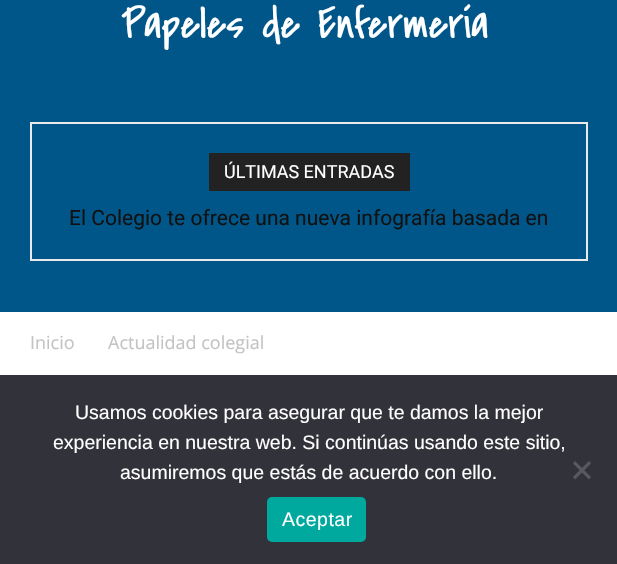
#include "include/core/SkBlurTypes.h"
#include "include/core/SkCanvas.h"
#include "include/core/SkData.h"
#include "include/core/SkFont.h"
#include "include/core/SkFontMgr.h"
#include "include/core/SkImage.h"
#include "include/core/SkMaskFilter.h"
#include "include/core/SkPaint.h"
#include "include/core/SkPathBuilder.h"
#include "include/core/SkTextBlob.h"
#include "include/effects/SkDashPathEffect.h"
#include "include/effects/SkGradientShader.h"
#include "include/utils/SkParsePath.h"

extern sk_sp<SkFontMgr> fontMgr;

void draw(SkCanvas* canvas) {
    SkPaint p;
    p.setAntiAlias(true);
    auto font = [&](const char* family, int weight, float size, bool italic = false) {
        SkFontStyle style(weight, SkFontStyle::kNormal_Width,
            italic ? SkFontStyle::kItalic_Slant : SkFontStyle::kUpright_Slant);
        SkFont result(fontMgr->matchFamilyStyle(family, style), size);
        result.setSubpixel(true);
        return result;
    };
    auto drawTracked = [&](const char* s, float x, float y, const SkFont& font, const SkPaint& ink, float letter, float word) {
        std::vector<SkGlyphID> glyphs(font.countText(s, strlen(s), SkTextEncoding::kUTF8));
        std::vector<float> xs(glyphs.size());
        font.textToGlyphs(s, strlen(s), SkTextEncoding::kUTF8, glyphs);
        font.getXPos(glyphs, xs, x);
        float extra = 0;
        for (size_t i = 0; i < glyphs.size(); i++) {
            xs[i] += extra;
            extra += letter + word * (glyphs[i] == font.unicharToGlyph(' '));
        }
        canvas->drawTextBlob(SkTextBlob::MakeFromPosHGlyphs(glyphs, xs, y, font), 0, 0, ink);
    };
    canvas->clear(0xFFFFFFFF);
    p.setColor(0xFF005689);
    canvas->drawRect(SkRect::MakeLTRB(0, 0, 617, 312), p);
    auto font1 = font("Covered By Your Grace", 400, 45);
    p.setColor(0xFFFFFFFF);
    canvas->drawString("Papeles de Enfermería", 121, 38, font1, p);
    p.setStyle(SkPaint::kStroke_Style);
    p.setStrokeWidth(2);
    p.setColor(0xFFEAEAEA);
    canvas->drawRect(SkRect::MakeLTRB(31, 123, 587, 260), p);
    p.setStyle(SkPaint::kFill_Style);
    p.setColor(0xFF222222);
    canvas->drawRect(SkRect::MakeLTRB(209, 153, 410, 191), p);
    auto font2 = font("Roboto", 400, 18);
    p.setColor(0xFFFFFFFF);
    canvas->drawString("ÚLTIMAS ENTRADAS", 224, 178, font2, p);
    auto font3 = font("Roboto", 400, 21);
    p.setColor(0xFF111111);
    canvas->drawString("El Colegio te ofrece una nueva infografía basada en", 69, 225, font3, p);
    auto font4 = font("Open Sans", 400, 18);
    p.setColor(0xFFC3C3C3);
    canvas->drawString("Inicio", 30, 349, font4, p);
    canvas->drawString("Actualidad colegial", 108, 349, font4, p);
    p.setColor(0xFF32323A);
    canvas->drawRect(SkRect::MakeLTRB(0, 375, 617, 564), p);
    auto font5 = font("Liberation Sans", 400, 19.5f);
    p.setColor(0xFFFFFFFF);
    {
        const struct { const char* s; float x, y; } items[] = {
            {"Usamos cookies para asegurar que te damos la mejor", 75, 419},
            {"experiencia en nuestra web. Si continúas usando este sitio,", 53, 449},
            {"asumiremos que estás de acuerdo con ello.", 120, 479},
        };
        for (auto [s, x, y] : items) {
            canvas->drawString(s, x, y, font5, p);
        }
    }
    p.setColor(0xFF59595D);
    canvas->drawPath(SkPathBuilder().moveTo(589, 461).lineTo(591, 463.5f).lineTo(575, 479.5f).lineTo(573, 477).close().detach(), p);
    canvas->drawPath(SkPathBuilder().moveTo(573, 463.5f).lineTo(575, 461).lineTo(591, 477).lineTo(589, 479.5f).close().detach(), p);
    p.setColor(0xFF00A99D);
    canvas->drawRoundRect(SkRect::MakeLTRB(267, 497, 366, 542), 5, 5, p);
    p.setColor(0xFFFFFFFF);
    drawTracked("Aceptar", 282, 526, font5, p, 0.5f, 0);
}
